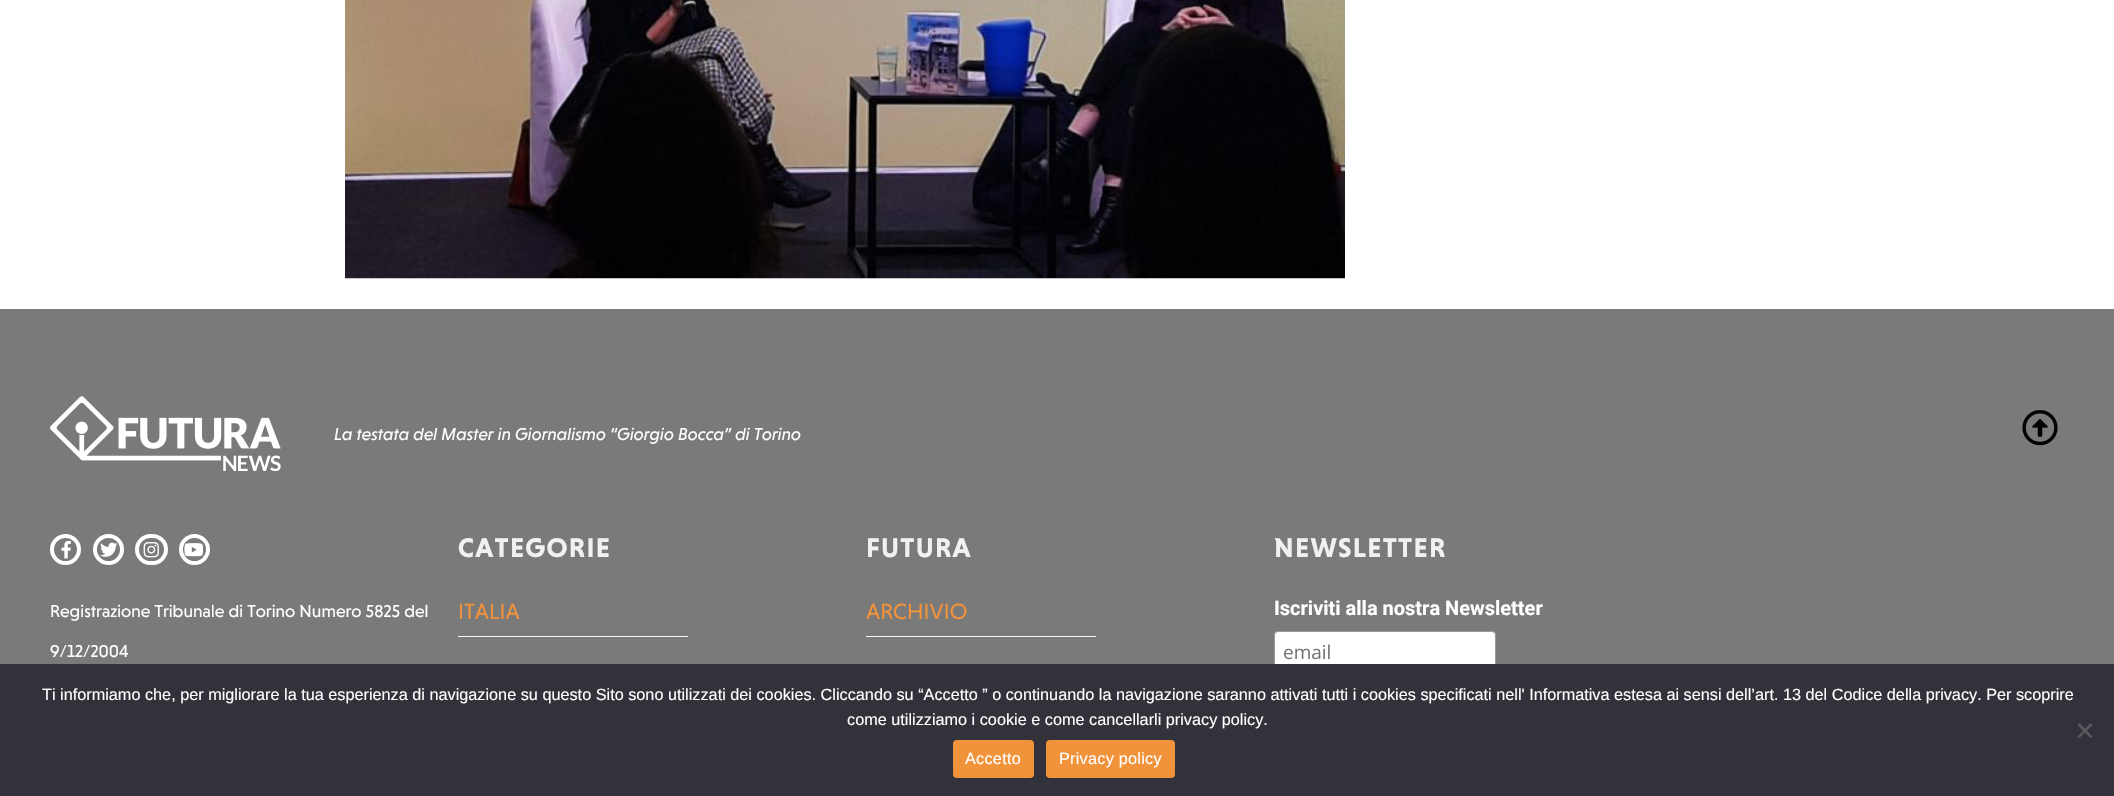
#include "include/core/SkBlurTypes.h"
#include "include/core/SkCanvas.h"
#include "include/core/SkData.h"
#include "include/core/SkFont.h"
#include "include/core/SkFontMgr.h"
#include "include/core/SkImage.h"
#include "include/core/SkMaskFilter.h"
#include "include/core/SkPaint.h"
#include "include/core/SkPathBuilder.h"
#include "include/core/SkTextBlob.h"
#include "include/effects/SkDashPathEffect.h"
#include "include/effects/SkGradientShader.h"
#include "include/utils/SkParsePath.h"

extern sk_sp<SkFontMgr> fontMgr;

void draw(SkCanvas* canvas) {
    SkPaint p;
    p.setAntiAlias(true);
    auto font = [&](const char* family, int weight, float size, bool italic = false) {
        SkFontStyle style(weight, SkFontStyle::kNormal_Width,
            italic ? SkFontStyle::kItalic_Slant : SkFontStyle::kUpright_Slant);
        SkFont result(fontMgr->matchFamilyStyle(family, style), size);
        result.setSubpixel(true);
        return result;
    };
    auto drawTracked = [&](const char* s, float x, float y, const SkFont& font, const SkPaint& ink, float letter, float word) {
        std::vector<SkGlyphID> glyphs(font.countText(s, strlen(s), SkTextEncoding::kUTF8));
        std::vector<float> xs(glyphs.size());
        font.textToGlyphs(s, strlen(s), SkTextEncoding::kUTF8, glyphs);
        font.getXPos(glyphs, xs, x);
        float extra = 0;
        for (size_t i = 0; i < glyphs.size(); i++) {
            xs[i] += extra;
            extra += letter + word * (glyphs[i] == font.unicharToGlyph(' '));
        }
        canvas->drawTextBlob(SkTextBlob::MakeFromPosHGlyphs(glyphs, xs, y, font), 0, 0, ink);
    };
    auto drawPhoto = [&](const char* path, float l, float t, float r, float b) {
        auto image = SkImages::DeferredFromEncodedData(SkData::MakeFromFileName(path));
        canvas->drawImageRect(image, SkRect::MakeLTRB(l, t, r, b), SkSamplingOptions());
    };
    canvas->clear(0xFFFFFFFF);
    drawPhoto("media/1.png", 345, 0, 1345, 279);
    p.setColor(0xFF7A7A7A);
    canvas->drawRect(SkRect::MakeLTRB(0, 309, 2114, 664), p);
    drawPhoto("media/2.png", 50, 396, 281, 471);
    auto font1 = font("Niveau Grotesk", 400, 17.5f, true);
    p.setColor(0xFFFFFFFF);
    canvas->drawString("La testata del Master in Giornalismo “Giorgio Bocca” di Torino", 334, 440, font1, p);
    drawPhoto("media/3.png", 2022, 410, 2058, 446);
    p.setStyle(SkPaint::kStroke_Style);
    p.setStrokeWidth(4);
    canvas->drawCircle(65.5f, 549.5f, 13.5f, p);
    drawPhoto("media/4.png", 61, 540, 71, 559);
    canvas->drawCircle(108.5f, 549.5f, 13.5f, p);
    drawPhoto("media/5.png", 100, 542, 118, 557);
    canvas->drawRoundRect(SkRect::MakeLTRB(137, 536, 166, 563), 13.5f, 13.5f, p);
    drawPhoto("media/6.png", 143, 542, 159, 558);
    canvas->drawCircle(194.5f, 549.5f, 13.5f, p);
    drawPhoto("media/7.png", 184, 543, 204, 557);
    auto font2 = font("Niveau Grotesk", 400, 17.5f);
    p.setStyle(SkPaint::kFill_Style);
    canvas->drawString("Registrazione Tribunale di Torino Numero 5825 del", 50, 617, font2, p);
    canvas->drawString("9/12/2004", 50, 657, font2, p);
    auto font3 = font("Niveau Grotesk", 700, 27.5f);
    p.setColor(0xFFF1F1F1);
    drawTracked("CATEGORIE", 458, 557, font3, p, 1.25f, 0);
    p.setColor(0xFFF6F6F6);
    canvas->drawRect(SkRect::MakeLTRB(458, 636, 688, 637), p);
    auto font4 = font("Niveau Grotesk", 400, 22.5f);
    p.setColor(0xFFF0933A);
    canvas->drawString("ITALIA", 458, 619, font4, p);
    p.setColor(0xFFF1F1F1);
    drawTracked("FUTURA", 866, 557, font3, p, 1.25f, 0);
    p.setColor(0xFFF6F6F6);
    canvas->drawRect(SkRect::MakeLTRB(866, 636, 1096, 637), p);
    p.setColor(0xFFF0933A);
    canvas->drawString("ARCHIVIO", 866, 619, font4, p);
    p.setColor(0xFFF1F1F1);
    drawTracked("NEWSLETTER", 1274, 557, font3, p, 1.25f, 0);
    auto font5 = font("Roboto", 700, 20);
    p.setColor(0xFFFFFFFF);
    canvas->drawString("Iscriviti alla nostra Newsletter", 1274, 615, font5, p);
    canvas->drawRoundRect(SkRect::MakeLTRB(1274.5f, 631.5f, 1495.5f, 670.5f), 3.5f, 3.5f, p);
    p.setStyle(SkPaint::kStroke_Style);
    p.setStrokeWidth(1);
    p.setColor(0xFF999999);
    canvas->drawRoundRect(SkRect::MakeLTRB(1274.5f, 631.5f, 1495.5f, 670.5f), 3.5f, 3.5f, p);
    auto font6 = font("Open Sans", 400, 19);
    p.setStyle(SkPaint::kFill_Style);
    p.setColor(0xFF757575);
    canvas->drawString("email", 1283, 659, font6, p);
    p.setColor(0xFF32323A);
    canvas->drawRect(SkRect::MakeLTRB(0, 664, 2114, 796), p);
    auto font7 = font("Liberation Sans", 400, 16.25f);
    p.setColor(0xFFFFFFFF);
    canvas->drawString("Ti informiamo che, per migliorare la tua esperienza di navigazione su questo Sito sono utilizzati dei cookies. Cliccando su “Accetto ” o continuando la navigazione saranno attivati tutti i cookies specificati nell' Informativa estesa ai sensi dell’art. 13 del Codice della privacy. Per scoprire", 42, 700, font7, p);
    canvas->drawString("come utilizziamo i cookie e come cancellarli privacy policy.", 847, 725, font7, p);
    p.setColor(0xFF59595D);
    canvas->drawPath(SkPathBuilder().moveTo(2090.5f, 723).lineTo(2092.5f, 725).lineTo(2079.5f, 738).lineTo(2077.5f, 736.5f).close().detach(), p);
    canvas->drawPath(SkPathBuilder().moveTo(2077.5f, 725).lineTo(2079.5f, 723).lineTo(2092.5f, 736.5f).lineTo(2090.5f, 738).close().detach(), p);
    p.setColor(0xFFF0933A);
    canvas->drawRoundRect(SkRect::MakeLTRB(953, 740, 1034, 778), 4, 4, p);
    p.setColor(0xFFFFFFFF);
    drawTracked("Accetto", 965, 764, font7, p, 0.25f, 0);
    p.setColor(0xFFF0933A);
    canvas->drawRoundRect(SkRect::MakeLTRB(1046, 740, 1175, 778), 4, 4, p);
    p.setColor(0xFFFFFFFF);
    drawTracked("Privacy policy", 1059, 764, font7, p, 0.25f, 0);
}
